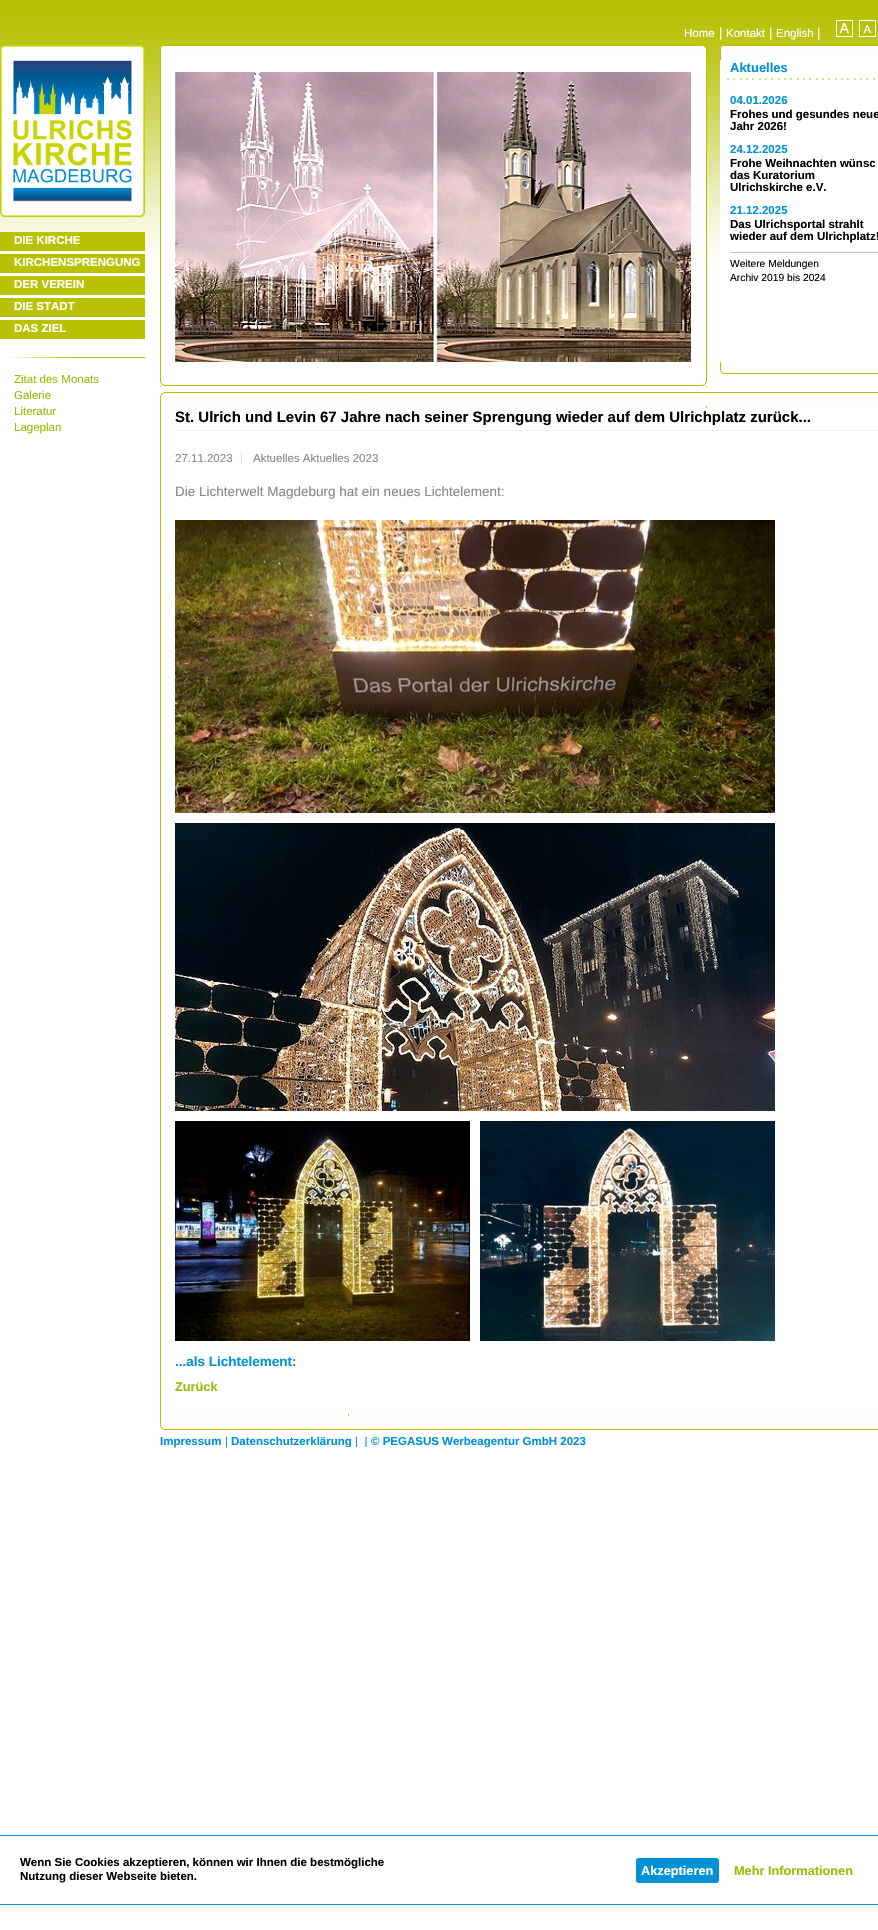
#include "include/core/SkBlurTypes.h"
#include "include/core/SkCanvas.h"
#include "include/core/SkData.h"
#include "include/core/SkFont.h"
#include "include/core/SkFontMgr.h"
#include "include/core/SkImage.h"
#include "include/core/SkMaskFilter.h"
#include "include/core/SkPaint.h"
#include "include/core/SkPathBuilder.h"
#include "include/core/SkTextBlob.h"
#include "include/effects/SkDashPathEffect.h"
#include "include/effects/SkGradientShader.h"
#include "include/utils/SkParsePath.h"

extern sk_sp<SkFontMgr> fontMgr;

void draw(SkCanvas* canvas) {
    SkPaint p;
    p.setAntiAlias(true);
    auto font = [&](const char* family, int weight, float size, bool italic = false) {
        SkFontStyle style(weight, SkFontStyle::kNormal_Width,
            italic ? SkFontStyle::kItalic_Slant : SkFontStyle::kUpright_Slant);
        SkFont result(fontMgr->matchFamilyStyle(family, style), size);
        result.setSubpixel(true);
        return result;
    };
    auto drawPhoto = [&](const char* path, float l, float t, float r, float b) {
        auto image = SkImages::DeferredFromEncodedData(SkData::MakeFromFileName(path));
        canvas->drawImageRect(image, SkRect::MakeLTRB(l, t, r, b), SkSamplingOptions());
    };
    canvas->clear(0xFFFFFFFF);
    drawPhoto("media/1.png", 0, 0, 878, 264);
    auto font1 = font("Liberation Sans", 400, 11.5f);
    p.setColor(0xFFFFFFFF);
    canvas->drawString("Home", 684, 37, font1, p);
    auto font2 = font("Liberation Sans", 400, 13);
    canvas->drawString("|", 719, 37, font2, p);
    canvas->drawString("Kontakt", 726, 37, font1, p);
    canvas->drawString("|", 769, 37, font2, p);
    canvas->drawString("English", 776, 37, font1, p);
    canvas->drawString("|", 817, 37, font2, p);
    drawPhoto("media/2.png", 836, 20, 853, 37);
    drawPhoto("media/3.png", 859, 20, 876, 37);
    drawPhoto("media/4.png", 0, 45, 145, 217);
    p.setColor(0xFFB8C200);
    canvas->drawRect(SkRect::MakeLTRB(0, 232, 145, 251), p);
    auto font3 = font("Liberation Sans", 700, 11.5f);
    p.setColor(0xFFFFFFFF);
    canvas->drawString("DIE KIRCHE", 14, 244, font3, p);
    p.setColor(0xFFB8C200);
    canvas->drawRect(SkRect::MakeLTRB(0, 254, 145, 273), p);
    p.setColor(0xFFFFFFFF);
    canvas->drawString("KIRCHENSPRENGUNG", 14, 266, font3, p);
    p.setColor(0xFFB8C200);
    canvas->drawRect(SkRect::MakeLTRB(0, 276, 145, 295), p);
    p.setColor(0xFFFFFFFF);
    canvas->drawString("DER VEREIN", 14, 288, font3, p);
    p.setColor(0xFFB8C200);
    canvas->drawRect(SkRect::MakeLTRB(0, 298, 145, 317), p);
    p.setColor(0xFFFFFFFF);
    canvas->drawString("DIE STADT", 14, 310, font3, p);
    p.setColor(0xFFB8C200);
    canvas->drawRect(SkRect::MakeLTRB(0, 320, 145, 339), p);
    p.setColor(0xFFFFFFFF);
    canvas->drawString("DAS ZIEL", 14, 332, font3, p);
    drawPhoto("media/5.png", 3, 357, 145, 358);
    p.setColor(0xFF9EB908);
    {
        const struct { const char* s; float x, y; } items[] = {
            {"Zitat des Monats", 14, 383},
            {"Galerie", 14, 399},
            {"Literatur", 14, 415},
            {"Lageplan", 14, 431},
        };
        for (auto [s, x, y] : items) {
            canvas->drawString(s, x, y, font1, p);
        }
    }
    drawPhoto("media/6.png", 160, 53, 707, 387);
    drawPhoto("media/7.png", 160, 45, 707, 53);
    drawPhoto("media/8.png", 175, 72, 691, 362);
    drawPhoto("media/9.png", 160, 380, 707, 386);
    drawPhoto("media/10.png", 720, 45, 878, 60);
    p.setColor(0xFFFFFFFF);
    canvas->drawRect(SkRect::MakeLTRB(720, 60, 878, 264), p);
    auto font4 = font("Liberation Sans", 700, 13);
    p.setColor(0xFF0092D5);
    canvas->drawString("Aktuelles", 730, 72, font4, p);
    drawPhoto("media/11.png", 727, 78, 875, 80);
    canvas->drawString("04.01.2026", 730, 104, font3, p);
    p.setColor(0xFF000000);
    canvas->drawString("Frohes und gesundes neue", 730, 118, font3, p);
    canvas->drawString("Jahr 2026!", 730, 130, font3, p);
    p.setColor(0xFF0092D5);
    canvas->drawString("24.12.2025", 730, 153, font3, p);
    p.setColor(0xFF000000);
    {
        const struct { const char* s; float x, y; } items[] = {
            {"Frohe Weihnachten wünsc", 730, 167},
            {"das Kuratorium", 730, 179},
            {"Ulrichskirche e.V.", 730, 191},
        };
        for (auto [s, x, y] : items) {
            canvas->drawString(s, x, y, font3, p);
        }
    }
    p.setColor(0xFF0092D5);
    canvas->drawString("21.12.2025", 730, 214, font3, p);
    p.setColor(0xFF000000);
    canvas->drawString("Das Ulrichsportal strahlt", 730, 228, font3, p);
    canvas->drawString("wieder auf dem Ulrichplatz!", 730, 240, font3, p);
    p.setColor(0xFFC0C0C0);
    canvas->drawRect(SkRect::MakeLTRB(730, 252, 878, 253), p);
    auto font5 = font("Liberation Sans", 400, 10.25f);
    p.setColor(0xFF000000);
    canvas->drawString("Weitere Meldungen", 730, 267, font5, p);
    canvas->drawString("Archiv 2019 bis 2024", 730, 281, font5, p);
    drawPhoto("media/12.png", 720, 362, 878, 374);
    drawPhoto("media/13.png", 160, 392, 878, 408);
    p.setColor(0xFFBAC008);
    canvas->drawRect(SkRect::MakeLTRB(160, 408, 161, 1414), p);
    auto font6 = font("Liberation Sans", 700, 15);
    p.setColor(0xFF000000);
    canvas->drawString("St. Ulrich und Levin 67 Jahre nach seiner Sprengung wieder auf dem Ulrichplatz zurück...", 175, 422, font6, p);
    p.setColor(0xFFEEEEEE);
    canvas->drawRect(SkRect::MakeLTRB(175, 430, 878, 431), p);
    p.setColor(0xFFDDDDDD);
    canvas->drawRect(SkRect::MakeLTRB(241, 453, 242, 464), p);
    p.setColor(0xFF888888);
    canvas->drawString("27.11.2023", 175, 462, font1, p);
    canvas->drawString("Aktuelles Aktuelles 2023", 253, 462, font1, p);
    auto font7 = font("Liberation Sans", 400, 13.5f);
    canvas->drawString("Die Lichterwelt Magdeburg hat ein neues Lichtelement:", 175, 496, font7, p);
    drawPhoto("media/14.png", 175, 520, 775, 813);
    drawPhoto("media/15.png", 175, 823, 775, 1111);
    drawPhoto("media/16.png", 175, 1121, 470, 1341);
    drawPhoto("media/17.png", 480, 1121, 775, 1341);
    auto font8 = font("Liberation Sans", 700, 13.5f);
    p.setColor(0xFF0092D5);
    canvas->drawString("...als Lichtelement:", 175, 1366, font8, p);
    auto font9 = font("Liberation Sans", 700, 12.75f);
    p.setColor(0xFF9EB908);
    canvas->drawString("Zurück", 175, 1391, font9, p);
    drawPhoto("media/18.png", 160, 1414, 878, 1430);
    p.setColor(0xFF0092D5);
    canvas->drawString("Impressum", 160, 1445, font3, p);
    canvas->drawString("|", 225, 1445, font1, p);
    canvas->save();
    canvas->clipRect(SkRect::MakeLTRB(160, 1435, 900, 1447));
    canvas->drawString("Datenschutzerklärung", 231, 1445, font3, p);
    canvas->drawString("|  |", 355, 1445, font1, p);
    canvas->drawString("© PEGASUS Werbeagentur GmbH 2023", 371, 1445, font3, p);
    canvas->restore();
    canvas->drawRect(SkRect::MakeLTRB(0, 1835, 878, 1836), p);
    canvas->drawRect(SkRect::MakeLTRB(0, 1904, 878, 1905), p);
    p.setColor(0xFF000000);
    canvas->drawString("Wenn Sie Cookies akzeptieren, können wir Ihnen die bestmögliche", 20, 1866, font3, p);
    canvas->drawString("Nutzung dieser Webseite bieten.", 20, 1880, font3, p);
    p.setColor(0xFF0092D5);
    canvas->drawRoundRect(SkRect::MakeLTRB(636, 1858, 719, 1883), 3, 3, p);
    p.setColor(0xFFFFFFFF);
    canvas->drawString("Akzeptieren", 641, 1875, font9, p);
    p.setColor(0xFF9EB908);
    canvas->drawString("Mehr Informationen", 734, 1875, font9, p);
}
